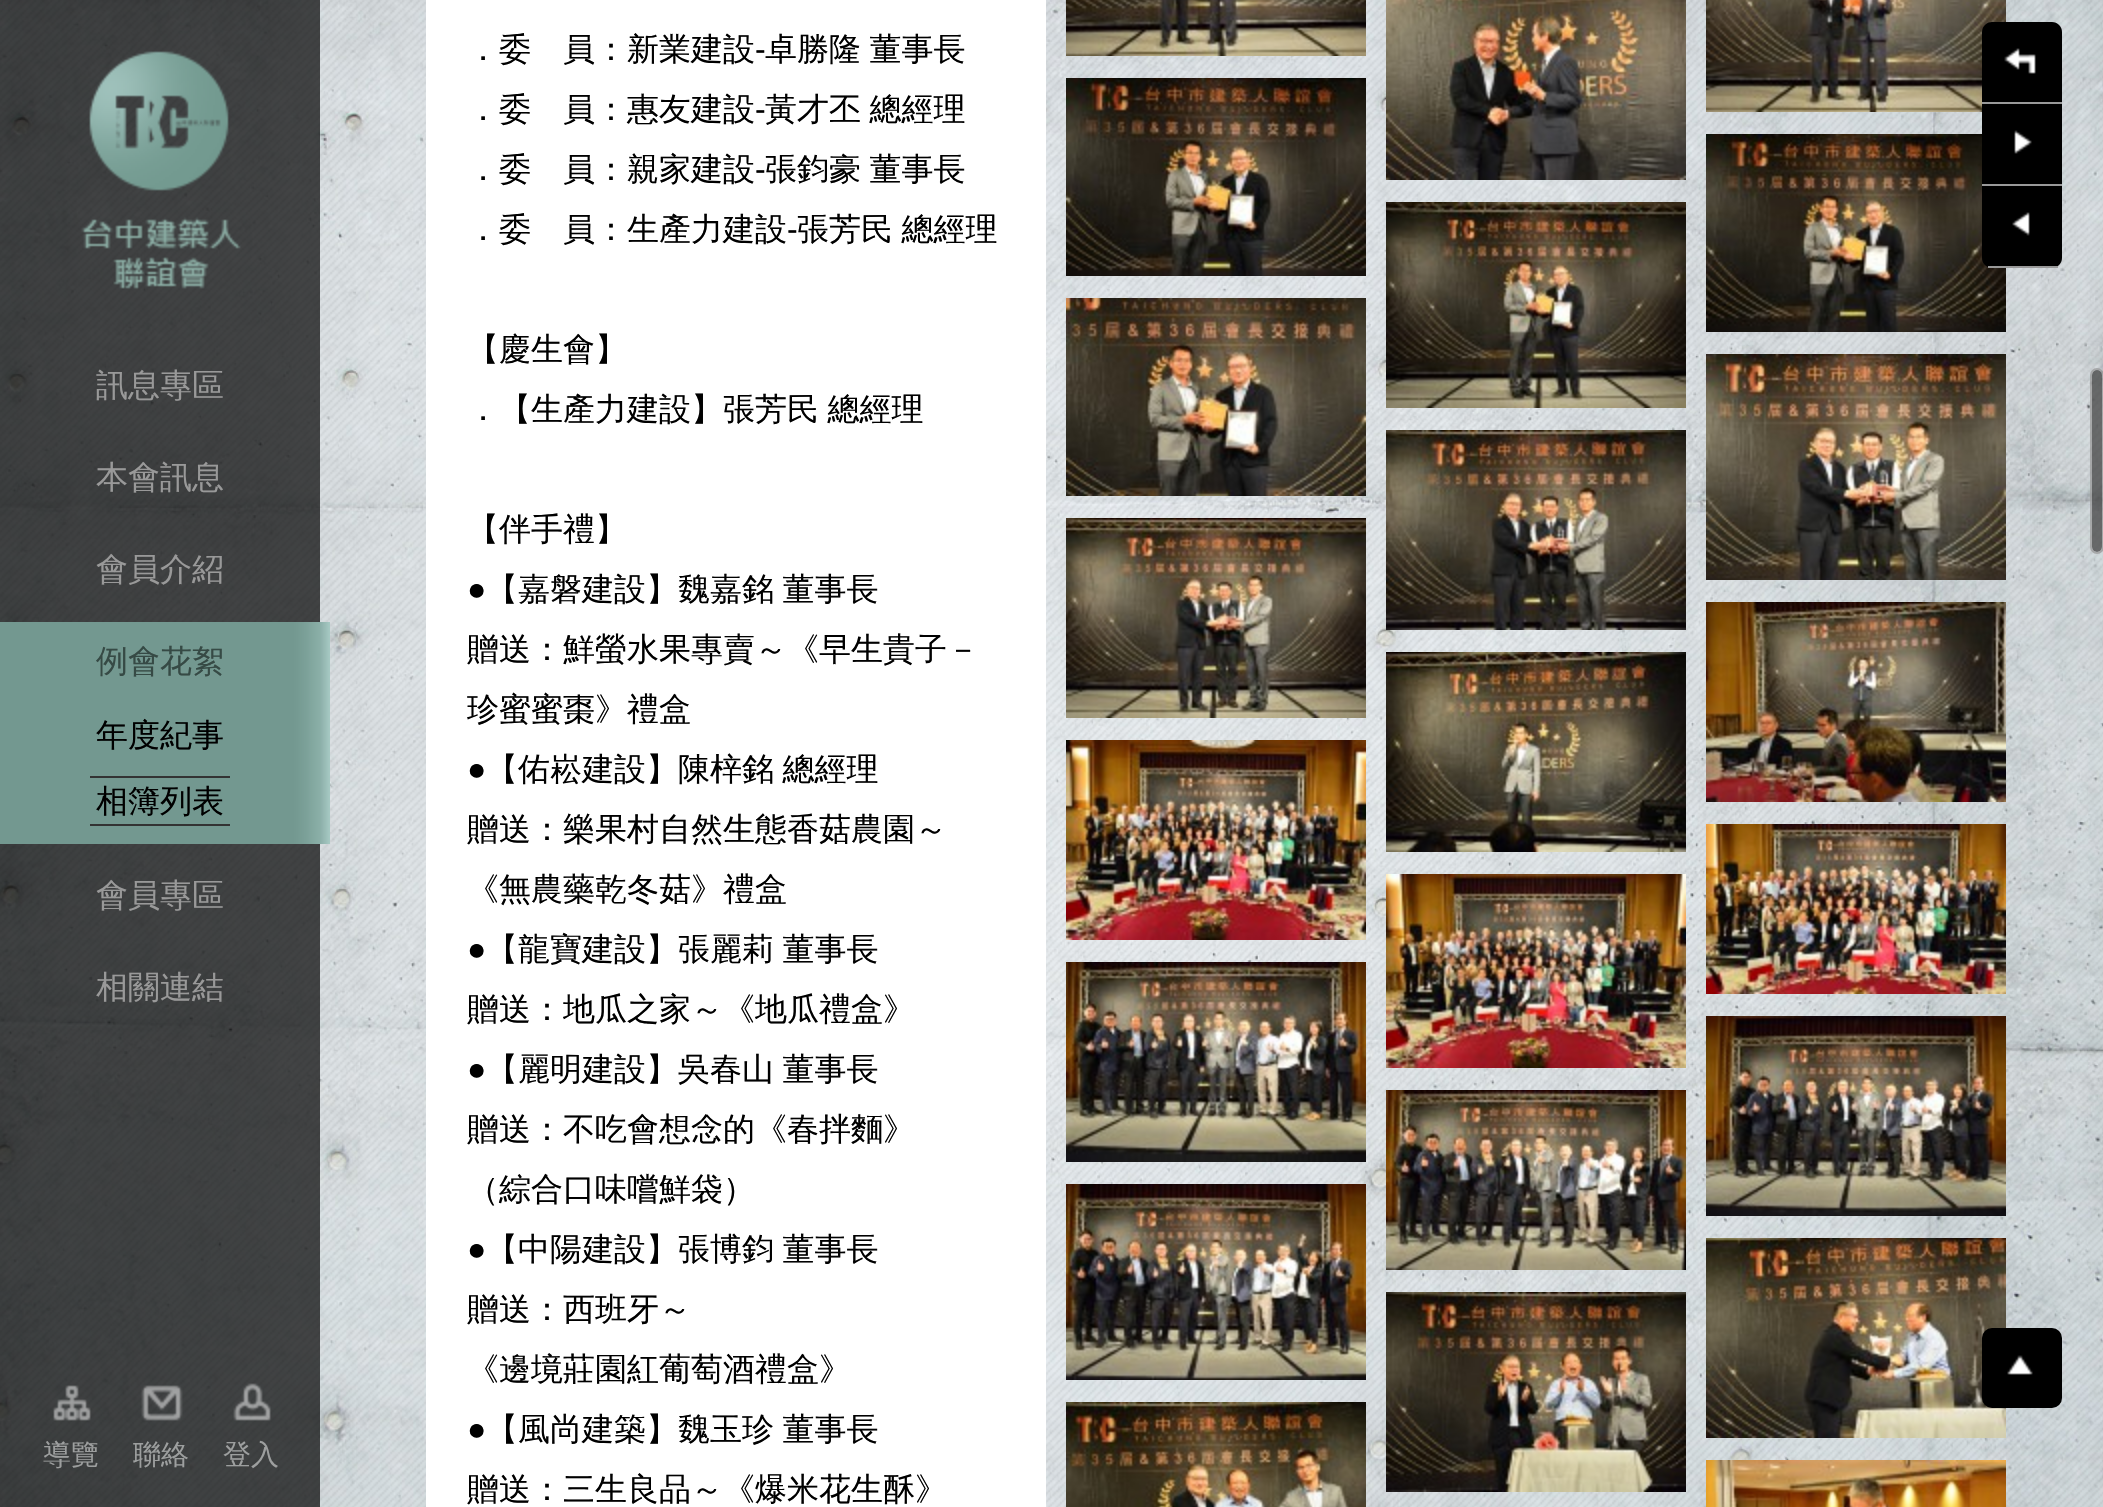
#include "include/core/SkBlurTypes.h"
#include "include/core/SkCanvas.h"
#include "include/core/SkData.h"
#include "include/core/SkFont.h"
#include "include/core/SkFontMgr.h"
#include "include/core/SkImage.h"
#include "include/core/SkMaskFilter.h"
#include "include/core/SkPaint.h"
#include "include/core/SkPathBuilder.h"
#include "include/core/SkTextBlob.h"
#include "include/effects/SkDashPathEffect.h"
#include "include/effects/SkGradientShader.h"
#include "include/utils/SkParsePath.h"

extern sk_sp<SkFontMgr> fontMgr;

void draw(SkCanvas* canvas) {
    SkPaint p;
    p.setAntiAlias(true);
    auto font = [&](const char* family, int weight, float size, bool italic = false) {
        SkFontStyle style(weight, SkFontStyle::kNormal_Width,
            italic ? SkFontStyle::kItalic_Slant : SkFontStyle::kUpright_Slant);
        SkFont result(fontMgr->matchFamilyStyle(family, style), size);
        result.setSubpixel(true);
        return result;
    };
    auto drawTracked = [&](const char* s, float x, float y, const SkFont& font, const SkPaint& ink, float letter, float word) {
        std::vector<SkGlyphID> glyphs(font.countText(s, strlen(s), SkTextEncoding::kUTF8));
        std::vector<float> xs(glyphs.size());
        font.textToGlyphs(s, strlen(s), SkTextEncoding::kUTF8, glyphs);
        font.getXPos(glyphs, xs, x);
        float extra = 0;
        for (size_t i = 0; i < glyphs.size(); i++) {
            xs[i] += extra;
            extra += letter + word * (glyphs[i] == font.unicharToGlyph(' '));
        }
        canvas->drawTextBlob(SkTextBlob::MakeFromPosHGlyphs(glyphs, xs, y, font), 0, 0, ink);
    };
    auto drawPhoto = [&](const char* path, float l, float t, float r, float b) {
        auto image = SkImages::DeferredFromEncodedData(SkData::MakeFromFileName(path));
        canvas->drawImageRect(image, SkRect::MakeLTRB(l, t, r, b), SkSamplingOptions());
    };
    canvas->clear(0xFFFFFFFF);
    drawPhoto("media/1.png", 0, 0, 2103, 1507);
    drawPhoto("media/8.png", 0, 0, 2103, 1507);
    p.setColor(0xB3000000);
    canvas->drawRect(SkRect::MakeLTRB(0, 0, 320, 1507), p);
    drawPhoto("media/2.png", 81, 51, 241, 289);
    auto font1 = font("WenQuanYi Zen Hei", 500, 32);
    p.setColor(0xFF999999);
    {
        const struct { const char* s; float x, y; } items[] = {
            {"訊息專區", 96, 396},
            {"本會訊息", 96, 488},
            {"會員介紹", 96, 580},
        };
        for (auto [s, x, y] : items) {
            canvas->drawString(s, x, y, font1, p);
        }
    }
    drawPhoto("media/3.png", 0, 622, 330, 702);
    p.setColor(0xFF364A45);
    canvas->drawString("例會花絮", 96, 672, font1, p);
    drawPhoto("media/4.png", 0, 702, 330, 844);
    p.setColor(0xFF000000);
    canvas->drawString("年度紀事", 96, 746, font1, p);
    p.setColor(0xFF333333);
    canvas->drawRect(SkRect::MakeLTRB(90, 776, 230, 778), p);
    canvas->drawRect(SkRect::MakeLTRB(90, 824, 230, 826), p);
    p.setColor(0xFF000000);
    canvas->drawString("相簿列表", 96, 812, font1, p);
    p.setColor(0xFF999999);
    canvas->drawString("會員專區", 96, 906, font1, p);
    canvas->drawString("相關連結", 96, 998, font1, p);
    drawPhoto("media/5.png", 53, 1385, 91, 1421);
    auto font2 = font("WenQuanYi Zen Hei", 500, 28);
    p.setColor(0xFF9D9F9F);
    canvas->drawString("導覽", 43, 1464, font2, p);
    drawPhoto("media/6.png", 141, 1385, 183, 1421);
    canvas->drawString("聯絡", 133, 1464, font2, p);
    drawPhoto("media/7.png", 233, 1383, 271, 1421);
    canvas->drawString("登入", 223, 1464, font2, p);
    p.setColor(0xFFFFFFFF);
    canvas->drawRect(SkRect::MakeLTRB(426, 0, 1046, 1507), p);
    p.setColor(0xFF000000);
    canvas->drawString("．委　員：新業建設", 467, 60, font1, p);
    auto font3 = font("Liberation Sans", 400, 32);
    canvas->drawString("-", 755, 60, font3, p);
    drawTracked("卓勝隆 董事長", 765, 60, font1, p, 0, -1);
    canvas->drawString("．委　員：惠友建設", 467, 120, font1, p);
    canvas->drawString("-", 755, 120, font3, p);
    drawTracked("黃才丕 總經理", 765, 120, font1, p, 0, -1);
    canvas->drawString("．委　員：親家建設", 467, 180, font1, p);
    canvas->drawString("-", 755, 180, font3, p);
    drawTracked("張鈞豪 董事長", 765, 180, font1, p, 0, -1);
    canvas->drawString("．委　員：生產力建設", 467, 240, font1, p);
    canvas->drawString("-", 787, 240, font3, p);
    drawTracked("張芳民 總經理", 797, 240, font1, p, 0, -1);
    canvas->drawString("【慶生會】", 467, 360, font1, p);
    drawTracked("．【生產力建設】張芳民 總經理", 467, 420, font1, p, 0, -1);
    canvas->drawString("【伴手禮】", 467, 540, font1, p);
    canvas->drawString("●", 467, 600, font3, p);
    drawTracked("【嘉磐建設】魏嘉銘 董事長", 486, 600, font1, p, 0, -1);
    canvas->drawString("贈送：鮮螢水果專賣～《早生貴子－", 467, 660, font1, p);
    canvas->drawString("珍蜜蜜棗》禮盒", 467, 720, font1, p);
    canvas->drawString("●", 467, 780, font3, p);
    drawTracked("【佑崧建設】陳梓銘 總經理", 486, 780, font1, p, 0, -1);
    canvas->drawString("贈送：樂果村自然生態香菇農園～", 467, 840, font1, p);
    canvas->drawString("《無農藥乾冬菇》禮盒", 467, 900, font1, p);
    canvas->drawString("●", 467, 960, font3, p);
    drawTracked("【龍寶建設】張麗莉 董事長", 486, 960, font1, p, 0, -1);
    canvas->drawString("贈送：地瓜之家～《地瓜禮盒》", 467, 1020, font1, p);
    canvas->drawString("●", 467, 1080, font3, p);
    drawTracked("【麗明建設】吳春山 董事長", 486, 1080, font1, p, 0, -1);
    canvas->drawString("贈送：不吃會想念的《春拌麵》", 467, 1140, font1, p);
    canvas->drawString("（綜合口味嚐鮮袋）", 467, 1200, font1, p);
    canvas->drawString("●", 467, 1260, font3, p);
    drawTracked("【中陽建設】張博鈞 董事長", 486, 1260, font1, p, 0, -1);
    canvas->drawString("贈送：西班牙～", 467, 1320, font1, p);
    canvas->drawString("《邊境莊園紅葡萄酒禮盒》", 467, 1380, font1, p);
    canvas->drawString("●", 467, 1440, font3, p);
    drawTracked("【風尚建築】魏玉珍 董事長", 486, 1440, font1, p, 0, -1);
    canvas->drawString("贈送：三生良品～《爆米花生酥》", 467, 1500, font1, p);
    drawPhoto("media/9.png", 1066, 0, 1366, 56);
    drawPhoto("media/10.png", 1386, 0, 1686, 180);
    drawPhoto("media/11.png", 1706, 0, 2006, 112);
    drawPhoto("media/12.png", 1066, 78, 1366, 276);
    drawPhoto("media/13.png", 1386, 202, 1686, 408);
    drawPhoto("media/14.png", 1706, 134, 2006, 332);
    drawPhoto("media/15.png", 1066, 298, 1366, 496);
    drawPhoto("media/16.png", 1386, 430, 1686, 630);
    drawPhoto("media/17.png", 1706, 354, 2006, 580);
    drawPhoto("media/18.png", 1066, 518, 1366, 718);
    drawPhoto("media/19.png", 1386, 652, 1686, 852);
    drawPhoto("media/20.png", 1706, 602, 2006, 802);
    drawPhoto("media/21.png", 1066, 740, 1366, 940);
    drawPhoto("media/22.png", 1386, 874, 1686, 1068);
    drawPhoto("media/23.png", 1706, 824, 2006, 994);
    drawPhoto("media/24.png", 1066, 962, 1366, 1162);
    drawPhoto("media/25.png", 1386, 1090, 1686, 1270);
    drawPhoto("media/26.png", 1706, 1016, 2006, 1216);
    drawPhoto("media/27.png", 1066, 1184, 1366, 1380);
    drawPhoto("media/28.png", 1386, 1292, 1686, 1492);
    drawPhoto("media/29.png", 1706, 1238, 2006, 1438);
    drawPhoto("media/30.png", 1066, 1402, 1366, 1507);
    drawPhoto("media/31.png", 1706, 1460, 2006, 1507);
    canvas->drawPath(SkPathBuilder().moveTo(1992, 22).lineTo(2052, 22).cubicTo(2057.5f, 22, 2062, 26.5f, 2062, 32).lineTo(2062, 104).lineTo(1982, 104).lineTo(1982, 32).cubicTo(1982, 26.5f, 1986.5f, 22, 1992, 22).close().detach(), p);
    drawPhoto("media/32.png", 2004, 48, 2036, 74);
    p.setColor(0xFF999999);
    canvas->drawRect(SkRect::MakeLTRB(1982, 102, 2062, 104), p);
    p.setColor(0xFF000000);
    canvas->drawRect(SkRect::MakeLTRB(1982, 104, 2062, 184), p);
    drawPhoto("media/33.png", 2014, 130, 2032, 154);
    p.setColor(0xFF999999);
    canvas->drawRect(SkRect::MakeLTRB(1982, 184, 2062, 186), p);
    p.setColor(0xFF000000);
    canvas->drawPath(SkPathBuilder().moveTo(1982, 186).lineTo(2062, 186).lineTo(2062, 258).cubicTo(2062, 263.5f, 2057.5f, 268, 2052, 268).lineTo(1992, 268).cubicTo(1986.5f, 268, 1982, 263.5f, 1982, 258).close().detach(), p);
    drawPhoto("media/34.png", 2012, 212, 2030, 236);
    p.setColor(0xFF999999);
    canvas->drawRect(SkRect::MakeLTRB(1988, 266, 2058, 268), p);
    p.setColor(0xFF000000);
    canvas->drawRoundRect(SkRect::MakeLTRB(1982, 1328, 2062, 1408), 10, 10, p);
    drawPhoto("media/35.png", 2007, 1355, 2033, 1375);
    p.setColor(0xBD424242);
    canvas->drawRoundRect(SkRect::MakeLTRB(2092, 370, 2102, 552), 5, 5, p);
    p.setStyle(SkPaint::kStroke_Style);
    p.setStrokeWidth(2);
    p.setColor(0xBD999999);
    canvas->drawRoundRect(SkRect::MakeLTRB(2091, 369, 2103, 553), 6, 6, p);
}
